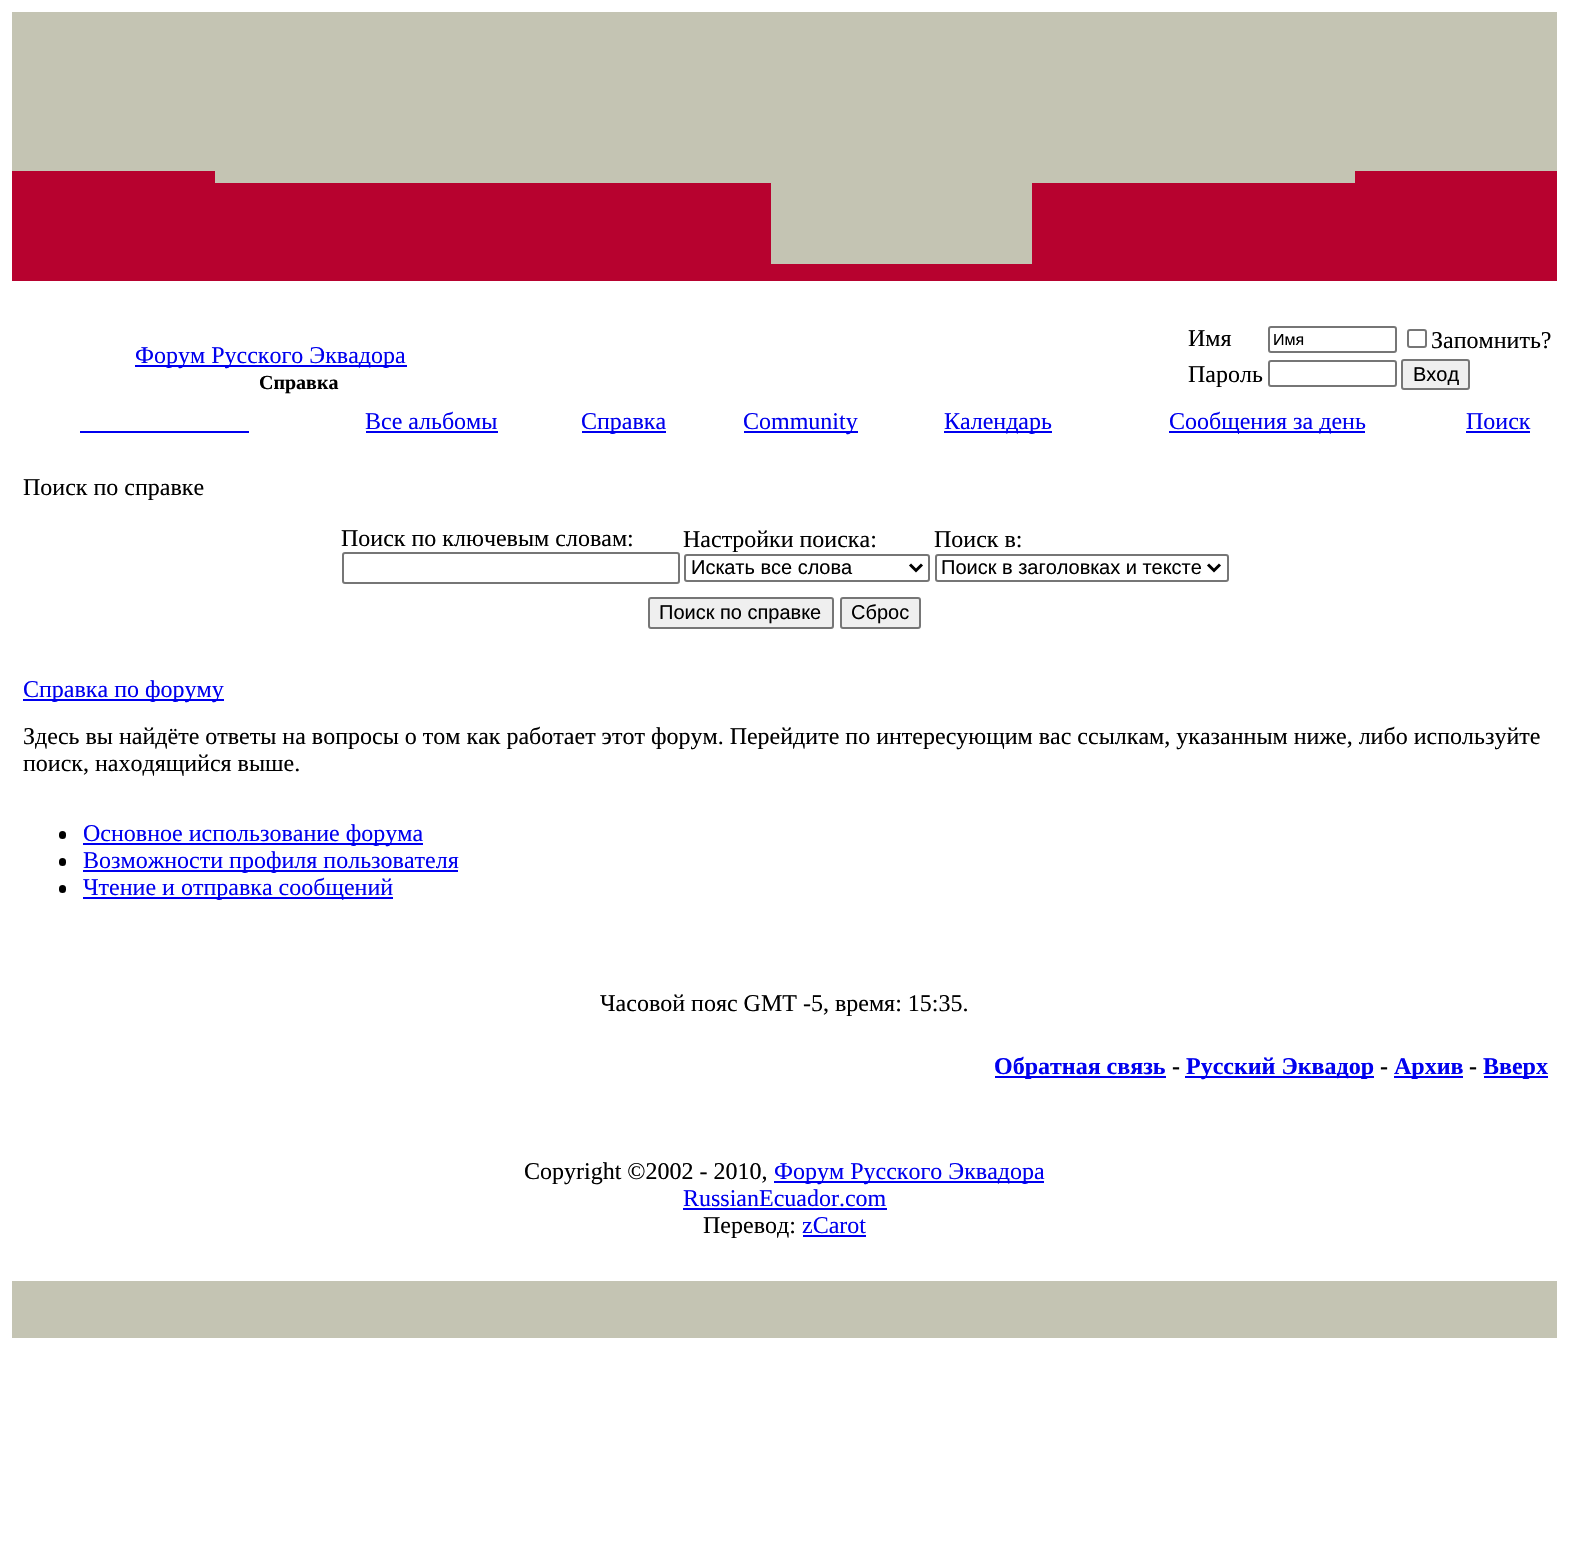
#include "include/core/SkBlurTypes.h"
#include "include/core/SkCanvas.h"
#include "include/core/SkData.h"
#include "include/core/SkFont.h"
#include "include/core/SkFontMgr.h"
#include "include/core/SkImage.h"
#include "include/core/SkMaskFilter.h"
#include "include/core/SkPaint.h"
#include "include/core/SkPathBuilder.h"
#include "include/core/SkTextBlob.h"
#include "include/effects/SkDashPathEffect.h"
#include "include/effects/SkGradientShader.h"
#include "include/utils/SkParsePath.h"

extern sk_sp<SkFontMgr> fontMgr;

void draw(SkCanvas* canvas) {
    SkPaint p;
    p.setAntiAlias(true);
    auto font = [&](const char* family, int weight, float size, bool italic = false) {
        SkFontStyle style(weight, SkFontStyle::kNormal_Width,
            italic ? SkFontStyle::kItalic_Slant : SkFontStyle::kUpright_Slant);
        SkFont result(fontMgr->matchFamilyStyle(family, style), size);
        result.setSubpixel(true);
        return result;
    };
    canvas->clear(0xFFFFFFFF);
    {
        const struct { float l, t, r, b; SkColor color; } items[] = {
            {12, 12, 215, 171, 0xFFC4C4B3},
            {215, 12, 1355, 264, 0xFFC4C4B3},
            {215, 183, 771, 281, 0xFFB7022F},
            {1032, 183, 1355, 264, 0xFFB7022F},
            {771, 264, 1355, 281, 0xFFB7022F},
            {1355, 12, 1557, 171, 0xFFC4C4B3},
            {12, 171, 215, 281, 0xFFB7022F},
            {1355, 171, 1557, 281, 0xFFB7022F},
            {135, 365, 407, 367, 0xFF0000EE},
        };
        for (auto [l, t, r, b, color] : items) {
            p.setColor(color);
            canvas->drawRect(SkRect::MakeLTRB(l, t, r, b), p);
        }
    }
    auto font1 = font("Liberation Serif", 400, 24);
    canvas->drawString("Форум Русского Эквадора", 135, 363, font1, p);
    auto font2 = font("Liberation Serif", 700, 20);
    p.setColor(0xFF000000);
    canvas->drawString("Справка", 259, 389, font2, p);
    canvas->drawString("Имя", 1188, 346, font1, p);
    p.setStyle(SkPaint::kStroke_Style);
    p.setStrokeWidth(2);
    p.setColor(0xFF767676);
    canvas->drawRoundRect(SkRect::MakeLTRB(1269, 327, 1396, 352), 2, 2, p);
    auto font3 = font("Liberation Sans", 400, 16);
    p.setStyle(SkPaint::kFill_Style);
    p.setColor(0xFF000000);
    canvas->drawString("Имя", 1273, 345, font3, p);
    p.setStyle(SkPaint::kStroke_Style);
    p.setColor(0xFF767676);
    canvas->drawRoundRect(SkRect::MakeLTRB(1408, 330, 1426, 347), 2, 2, p);
    p.setStyle(SkPaint::kFill_Style);
    p.setColor(0xFF000000);
    canvas->drawString("Запомнить?", 1431, 348, font1, p);
    canvas->drawString("Пароль", 1188, 382, font1, p);
    p.setStyle(SkPaint::kStroke_Style);
    p.setColor(0xFF767676);
    canvas->drawRoundRect(SkRect::MakeLTRB(1269, 361, 1396, 386), 2, 2, p);
    p.setStyle(SkPaint::kFill_Style);
    p.setColor(0xFFEFEFEF);
    canvas->drawRoundRect(SkRect::MakeLTRB(1402, 360, 1469, 389), 2, 2, p);
    p.setStyle(SkPaint::kStroke_Style);
    p.setColor(0xFF767676);
    canvas->drawRoundRect(SkRect::MakeLTRB(1402, 360, 1469, 389), 2, 2, p);
    auto font4 = font("Liberation Sans", 400, 20);
    p.setStyle(SkPaint::kFill_Style);
    p.setColor(0xFF000000);
    canvas->drawString("Вход", 1413, 381, font4, p);
    p.setColor(0xFF0000EE);
    canvas->drawString("Все альбомы", 365, 429, font1, p);
    canvas->drawRect(SkRect::MakeLTRB(366, 431, 498, 433), p);
    canvas->drawRect(SkRect::MakeLTRB(582, 431, 666, 433), p);
    canvas->drawString("Справка", 581, 429, font1, p);
    canvas->drawRect(SkRect::MakeLTRB(744, 431, 858, 433), p);
    canvas->drawString("Community", 743, 429, font1, p);
    canvas->drawRect(SkRect::MakeLTRB(944, 431, 1052, 433), p);
    canvas->drawString("Календарь", 944, 429, font1, p);
    canvas->drawRect(SkRect::MakeLTRB(1169, 431, 1365, 433), p);
    canvas->drawString("Сообщения за день", 1169, 429, font1, p);
    canvas->drawString("Поиск", 1466, 429, font1, p);
    canvas->drawRect(SkRect::MakeLTRB(1466, 431, 1530, 433), p);
    canvas->drawRect(SkRect::MakeLTRB(80, 431, 249, 433), p);
    p.setColor(0xFF000000);
    canvas->drawString("Поиск по справке", 23, 495, font1, p);
    canvas->drawString("Поиск по ключевым словам:", 341, 546, font1, p);
    p.setStyle(SkPaint::kStroke_Style);
    p.setColor(0xFF767676);
    canvas->drawRoundRect(SkRect::MakeLTRB(343, 553, 679, 583), 2, 2, p);
    p.setStyle(SkPaint::kFill_Style);
    p.setColor(0xFF000000);
    canvas->drawString("Настройки поиска:", 683, 547, font1, p);
    p.setStyle(SkPaint::kStroke_Style);
    p.setColor(0xFF767676);
    canvas->drawRoundRect(SkRect::MakeLTRB(685, 555, 929, 581), 2, 2, p);
    p.setStrokeWidth(3);
    p.setColor(0xFF000000);
    canvas->drawPath(SkPathBuilder().moveTo(910, 564.5f).lineTo(916, 570.5f).lineTo(922, 564.5f).detach(), p);
    p.setStyle(SkPaint::kFill_Style);
    canvas->drawString("Искать все слова", 691, 574, font4, p);
    canvas->drawString("Поиск в:", 934, 547, font1, p);
    p.setStyle(SkPaint::kStroke_Style);
    p.setStrokeWidth(2);
    p.setColor(0xFF767676);
    canvas->drawRoundRect(SkRect::MakeLTRB(936, 555, 1228, 581), 2, 2, p);
    p.setStrokeWidth(3);
    p.setColor(0xFF000000);
    canvas->drawPath(SkPathBuilder().moveTo(1208, 564.5f).lineTo(1214, 570.5f).lineTo(1220, 564.5f).detach(), p);
    p.setStyle(SkPaint::kFill_Style);
    canvas->drawString("Поиск в заголовках и тексте", 941, 574, font4, p);
    p.setColor(0xFFEFEFEF);
    canvas->drawRoundRect(SkRect::MakeLTRB(649, 598, 833, 628), 2, 2, p);
    p.setStyle(SkPaint::kStroke_Style);
    p.setStrokeWidth(2);
    p.setColor(0xFF767676);
    canvas->drawRoundRect(SkRect::MakeLTRB(649, 598, 833, 628), 2, 2, p);
    p.setStyle(SkPaint::kFill_Style);
    p.setColor(0xFF000000);
    canvas->drawString("Поиск по справке", 659, 619, font4, p);
    p.setColor(0xFFEFEFEF);
    canvas->drawRoundRect(SkRect::MakeLTRB(841, 598, 920, 628), 2, 2, p);
    p.setStyle(SkPaint::kStroke_Style);
    p.setColor(0xFF767676);
    canvas->drawRoundRect(SkRect::MakeLTRB(841, 598, 920, 628), 2, 2, p);
    p.setStyle(SkPaint::kFill_Style);
    p.setColor(0xFF000000);
    canvas->drawString("Сброс", 851, 619, font4, p);
    p.setColor(0xFF0000EE);
    canvas->drawRect(SkRect::MakeLTRB(23, 699, 224, 701), p);
    canvas->drawString("Справка по форуму", 23, 697, font1, p);
    p.setColor(0xFF000000);
    canvas->drawString("Здесь вы найдёте ответы на вопросы о том как работает этот форум. Перейдите по интересующим вас ссылкам, указанным ниже, либо используйте", 23, 744, font1, p);
    canvas->drawString("поиск, находящийся выше.", 23, 771, font1, p);
    canvas->drawRoundRect(SkRect::MakeLTRB(59, 831, 66, 839), 3.5f, 3.5f, p);
    p.setColor(0xFF0000EE);
    canvas->drawRect(SkRect::MakeLTRB(83, 843, 423, 845), p);
    canvas->drawString("Основное использование форума", 83, 841, font1, p);
    p.setColor(0xFF000000);
    canvas->drawRoundRect(SkRect::MakeLTRB(59, 858, 66, 866), 3.5f, 3.5f, p);
    p.setColor(0xFF0000EE);
    canvas->drawRect(SkRect::MakeLTRB(83, 870, 458, 872), p);
    canvas->drawString("Возможности профиля пользователя", 83, 868, font1, p);
    p.setColor(0xFF000000);
    canvas->drawRoundRect(SkRect::MakeLTRB(59, 885, 66, 893), 3.5f, 3.5f, p);
    p.setColor(0xFF0000EE);
    canvas->drawRect(SkRect::MakeLTRB(83, 897, 393, 899), p);
    canvas->drawString("Чтение и отправка сообщений", 83, 895, font1, p);
    p.setColor(0xFF000000);
    canvas->drawString("Часовой пояс GMT -5, время: 15:35.", 600, 1011, font1, p);
    p.setColor(0xFF0000EE);
    canvas->drawRect(SkRect::MakeLTRB(995, 1076, 1166, 1078), p);
    auto font5 = font("Liberation Serif", 700, 24);
    canvas->drawString("Обратная связь", 994, 1074, font5, p);
    p.setColor(0xFF000000);
    canvas->drawString("-", 1172, 1074, font5, p);
    p.setColor(0xFF0000EE);
    canvas->drawRect(SkRect::MakeLTRB(1185, 1076, 1374, 1078), p);
    canvas->drawString("Русский Эквадор", 1186, 1074, font5, p);
    p.setColor(0xFF000000);
    canvas->drawString("-", 1380, 1074, font5, p);
    p.setColor(0xFF0000EE);
    canvas->drawRect(SkRect::MakeLTRB(1394, 1076, 1463, 1078), p);
    canvas->drawString("Архив", 1394, 1074, font5, p);
    p.setColor(0xFF000000);
    canvas->drawString("-", 1469, 1074, font5, p);
    p.setColor(0xFF0000EE);
    canvas->drawRect(SkRect::MakeLTRB(1484, 1076, 1548, 1078), p);
    canvas->drawString("Вверх", 1483, 1074, font5, p);
    p.setColor(0xFF000000);
    canvas->drawString("Copyright ©2002 - 2010,", 524, 1179, font1, p);
    p.setColor(0xFF0000EE);
    canvas->drawRect(SkRect::MakeLTRB(774, 1181, 1044, 1183), p);
    canvas->drawString("Форум Русского Эквадора", 774, 1179, font1, p);
    canvas->drawString("RussianEcuador.com", 683, 1206, font1, p);
    canvas->drawRect(SkRect::MakeLTRB(683, 1208, 887, 1210), p);
    p.setColor(0xFF000000);
    canvas->drawString("Перевод:", 703, 1233, font1, p);
    p.setColor(0xFF0000EE);
    canvas->drawString("zCarot", 802, 1233, font1, p);
    canvas->drawRect(SkRect::MakeLTRB(803, 1235, 866, 1237), p);
    p.setColor(0xFFC4C4B3);
    canvas->drawRect(SkRect::MakeLTRB(12, 1281, 1557, 1338), p);
}
